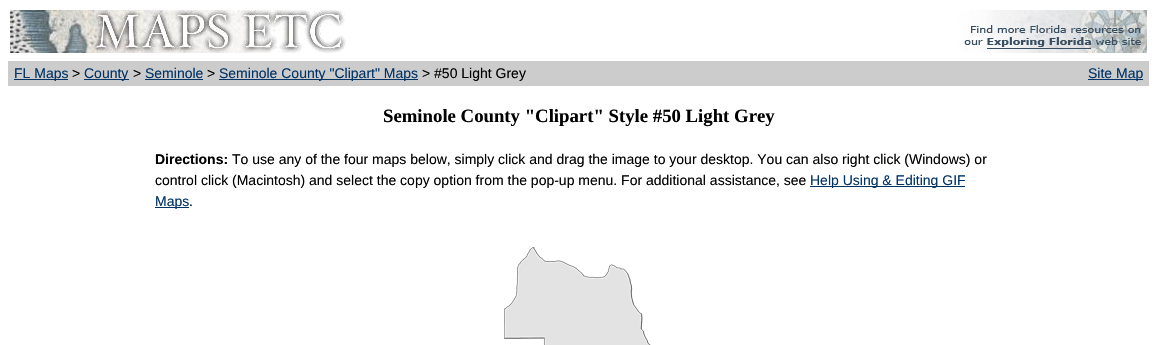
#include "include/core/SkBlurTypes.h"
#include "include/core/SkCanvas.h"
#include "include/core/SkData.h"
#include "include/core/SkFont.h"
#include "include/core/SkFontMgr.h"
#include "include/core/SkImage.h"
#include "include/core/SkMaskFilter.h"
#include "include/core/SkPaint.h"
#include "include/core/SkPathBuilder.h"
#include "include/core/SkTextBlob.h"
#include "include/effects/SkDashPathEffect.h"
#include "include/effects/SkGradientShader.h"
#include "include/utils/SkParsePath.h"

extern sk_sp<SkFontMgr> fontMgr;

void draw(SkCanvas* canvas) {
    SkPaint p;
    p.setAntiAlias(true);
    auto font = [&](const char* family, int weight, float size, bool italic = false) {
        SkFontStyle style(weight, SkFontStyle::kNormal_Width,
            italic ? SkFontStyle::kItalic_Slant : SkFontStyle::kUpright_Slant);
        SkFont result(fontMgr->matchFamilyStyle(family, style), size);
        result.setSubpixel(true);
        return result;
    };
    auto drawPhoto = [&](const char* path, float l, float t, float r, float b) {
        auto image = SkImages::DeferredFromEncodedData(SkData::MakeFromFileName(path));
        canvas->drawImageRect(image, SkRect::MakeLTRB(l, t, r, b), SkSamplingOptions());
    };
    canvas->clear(0xFFFFFFFF);
    drawPhoto("media/1.png", 10, 10, 346, 53);
    drawPhoto("media/2.png", 958, 10, 1147, 53);
    p.setColor(0xFFCCCCCC);
    canvas->drawRect(SkRect::MakeLTRB(8, 61, 1149, 86), p);
    p.setColor(0xFF003366);
    canvas->drawRect(SkRect::MakeLTRB(14, 79, 68, 80), p);
    auto font1 = font("Liberation Sans", 400, 14);
    canvas->drawString("FL Maps", 14, 78, font1, p);
    p.setColor(0xFF000000);
    canvas->drawString(">", 72, 78, font1, p);
    p.setColor(0xFF003366);
    canvas->drawRect(SkRect::MakeLTRB(84, 79, 129, 80), p);
    canvas->drawString("County", 84, 78, font1, p);
    p.setColor(0xFF000000);
    canvas->drawString(">", 133, 78, font1, p);
    p.setColor(0xFF003366);
    canvas->drawString("Seminole", 145, 78, font1, p);
    canvas->drawRect(SkRect::MakeLTRB(145, 79, 203, 80), p);
    p.setColor(0xFF000000);
    canvas->drawString(">", 207, 78, font1, p);
    p.setColor(0xFF003366);
    canvas->drawRect(SkRect::MakeLTRB(219, 79, 418, 80), p);
    canvas->drawString("Seminole County \"Clipart\" Maps", 219, 78, font1, p);
    p.setColor(0xFF000000);
    canvas->drawString("> #50 Light Grey", 422, 78, font1, p);
    p.setColor(0xFF003366);
    canvas->drawRect(SkRect::MakeLTRB(1088, 79, 1143, 80), p);
    canvas->drawString("Site Map", 1088, 78, font1, p);
    auto font2 = font("Liberation Serif", 700, 18.75f);
    p.setColor(0xFF000000);
    canvas->drawString("Seminole County \"Clipart\" Style #50 Light Grey", 383, 122, font2, p);
    auto font3 = font("Liberation Sans", 700, 14);
    canvas->drawString("Directions:", 155, 164, font3, p);
    canvas->drawString("To use any of the four maps below, simply click and drag the image to your desktop. You can also right click (Windows) or", 232, 164, font1, p);
    canvas->drawString("control click (Macintosh) and select the copy option from the pop-up menu. For additional assistance, see", 155, 185, font1, p);
    p.setColor(0xFF003366);
    canvas->drawRect(SkRect::MakeLTRB(810, 186, 965, 187), p);
    canvas->drawString("Help Using & Editing GIF", 810, 185, font1, p);
    canvas->drawRect(SkRect::MakeLTRB(155, 207, 189, 208), p);
    canvas->drawString("Maps", 155, 206, font1, p);
    p.setColor(0xFF000000);
    canvas->drawString(".", 189, 206, font1, p);
    drawPhoto("media/3.png", 504, 247, 651, 345);
}
